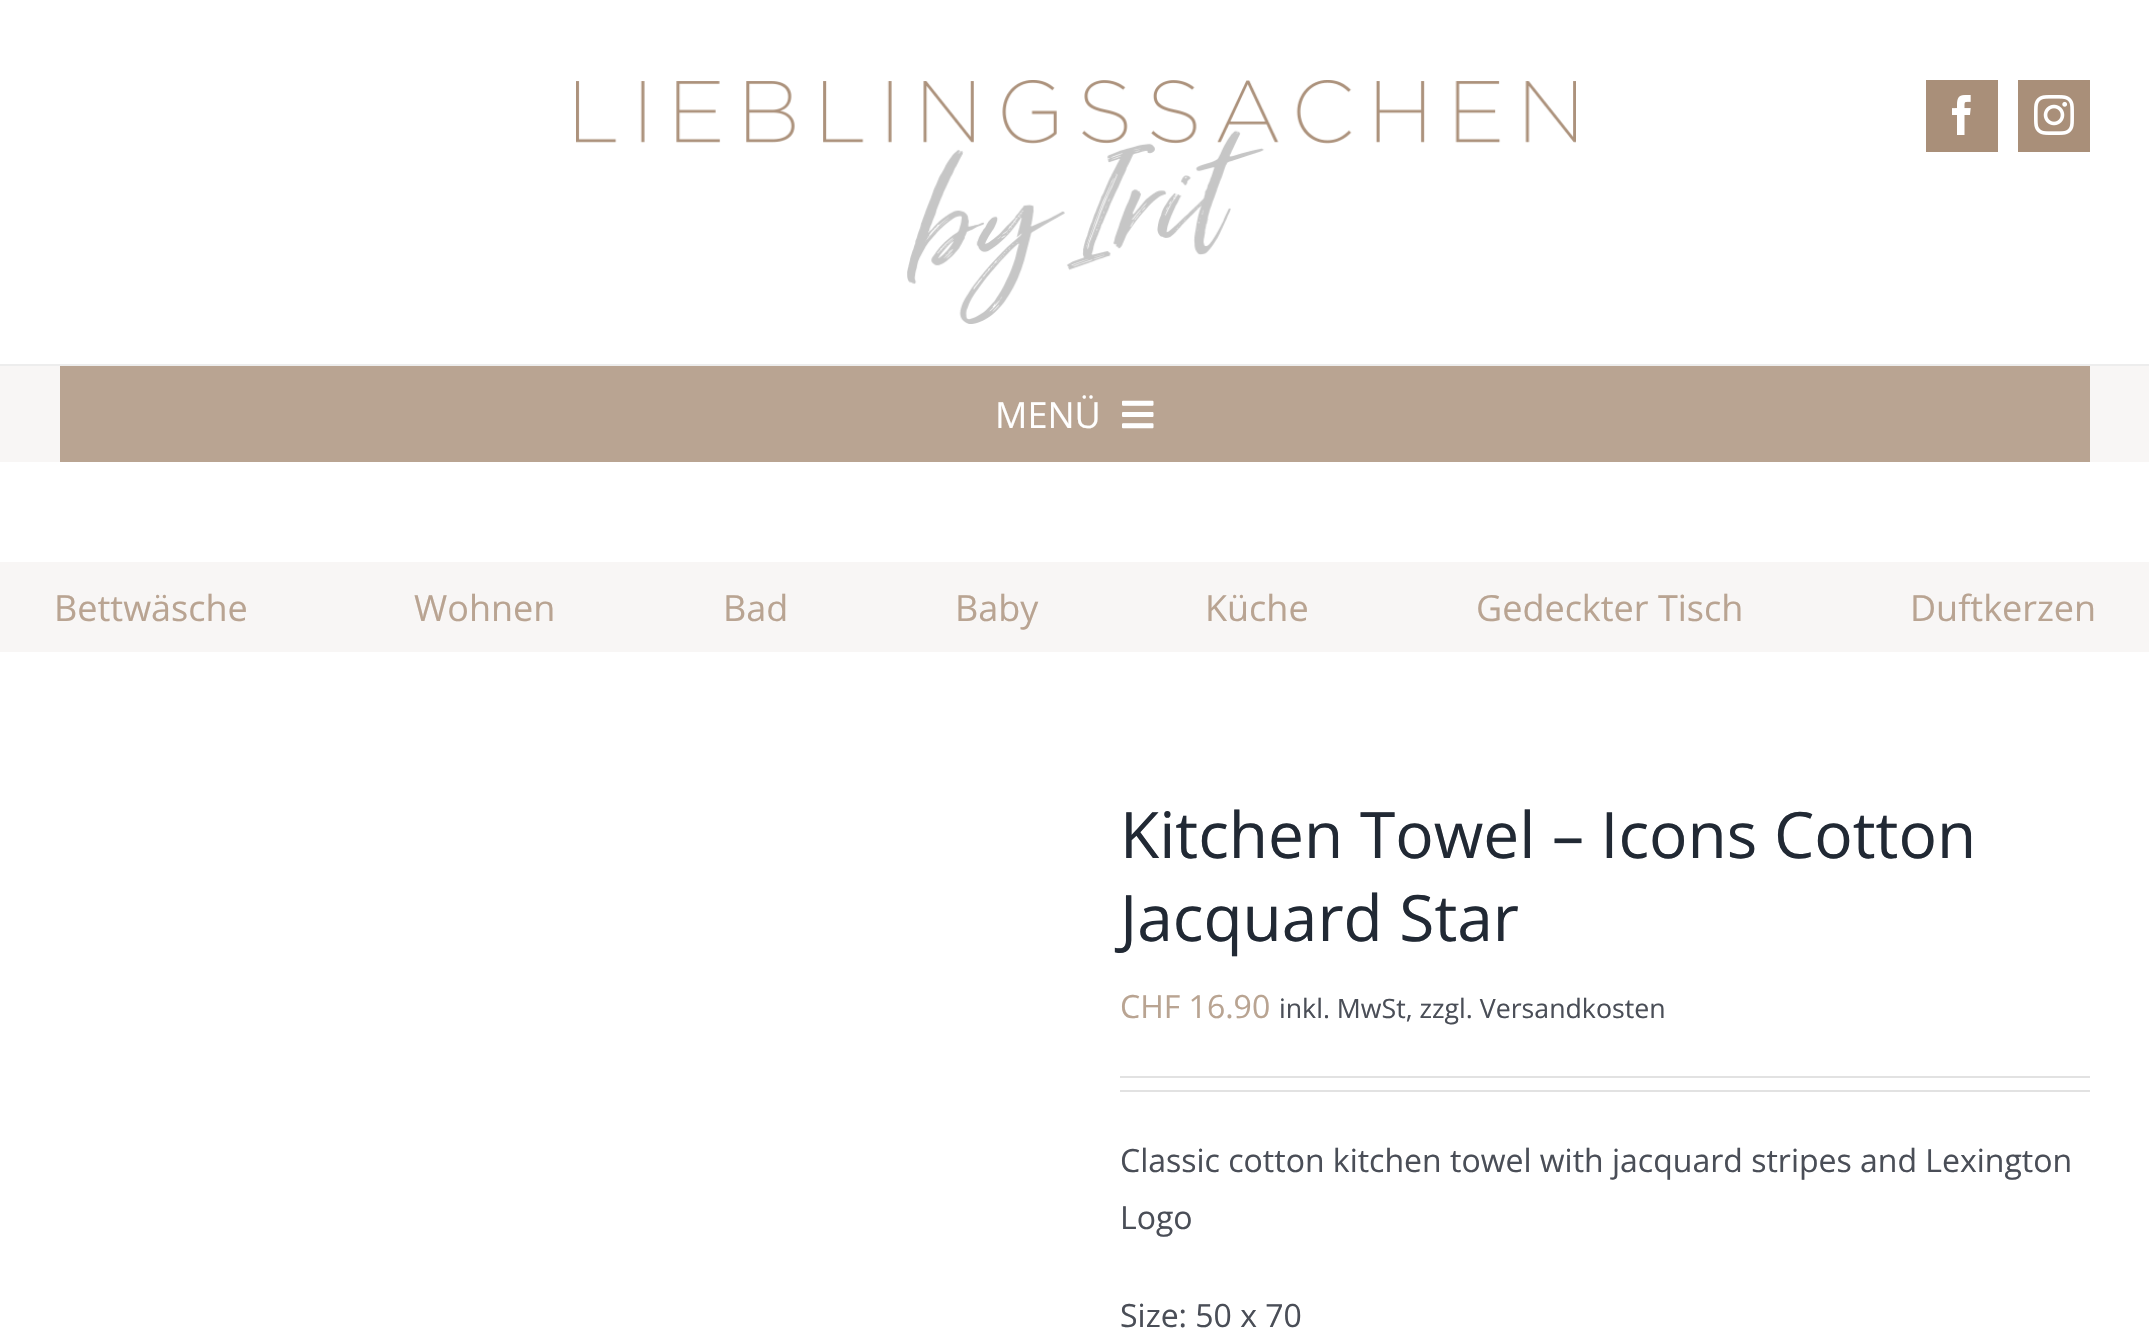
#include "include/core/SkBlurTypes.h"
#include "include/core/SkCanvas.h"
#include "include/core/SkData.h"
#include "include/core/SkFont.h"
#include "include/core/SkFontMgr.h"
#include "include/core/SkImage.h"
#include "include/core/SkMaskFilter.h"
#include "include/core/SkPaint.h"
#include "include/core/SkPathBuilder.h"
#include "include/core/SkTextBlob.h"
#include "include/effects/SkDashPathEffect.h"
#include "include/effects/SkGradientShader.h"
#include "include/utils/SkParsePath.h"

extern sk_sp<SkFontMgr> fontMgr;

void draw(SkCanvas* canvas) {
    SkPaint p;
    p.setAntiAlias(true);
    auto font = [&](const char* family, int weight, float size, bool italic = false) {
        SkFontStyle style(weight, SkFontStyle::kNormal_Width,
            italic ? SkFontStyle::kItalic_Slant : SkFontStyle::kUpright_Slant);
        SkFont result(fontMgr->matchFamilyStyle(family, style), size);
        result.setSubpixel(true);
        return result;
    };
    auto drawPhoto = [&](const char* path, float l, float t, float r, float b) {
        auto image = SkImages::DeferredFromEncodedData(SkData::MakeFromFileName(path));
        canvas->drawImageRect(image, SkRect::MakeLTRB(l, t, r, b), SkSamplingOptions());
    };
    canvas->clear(0xFFFFFFFF);
    p.setColor(0xFFEDEDED);
    canvas->drawRect(SkRect::MakeLTRB(0, 364, 2149, 366), p);
    drawPhoto("media/1.png", 576, 80, 1576, 324);
    p.setColor(0xFFA98F79);
    canvas->drawRect(SkRect::MakeLTRB(1926, 80, 1998, 152), p);
    drawPhoto("media/2.png", 1952, 95, 1971, 135);
    canvas->drawRect(SkRect::MakeLTRB(2018, 80, 2090, 152), p);
    drawPhoto("media/3.png", 2034, 95, 2074, 135);
    p.setColor(0xFFF8F6F5);
    canvas->drawRect(SkRect::MakeLTRB(0, 366, 2149, 462), p);
    p.setColor(0xFFB9A492);
    canvas->drawRect(SkRect::MakeLTRB(60, 366, 2090, 462), p);
    auto font1 = font("Open Sans", 400, 36);
    p.setColor(0xFFFFFFFF);
    canvas->drawString("MENÜ", 995, 428, font1, p);
    drawPhoto("media/4.png", 1122, 400, 1154, 429);
    p.setColor(0xFFF8F6F5);
    canvas->drawRect(SkRect::MakeLTRB(0, 562, 2149, 652), p);
    p.setColor(0xFFB9A492);
    {
        const struct { const char* s; float x, y; } items[] = {
            {"Bettwäsche", 54, 621},
            {"Wohnen", 414, 621},
            {"Bad", 723, 621},
            {"Baby", 955, 621},
            {"Küche", 1205, 621},
            {"Gedeckter Tisch", 1476, 621},
            {"Duftkerzen", 1910, 621},
        };
        for (auto [s, x, y] : items) {
            canvas->drawString(s, x, y, font1, p);
        }
    }
    auto font2 = font("Open Sans", 400, 64);
    p.setColor(0xFF212934);
    canvas->drawString("Kitchen Towel – Icons Cotton", 1120, 858, font2, p);
    canvas->drawString("Jacquard Star", 1120, 941, font2, p);
    auto font3 = font("Open Sans", 400, 32);
    p.setColor(0xFFB9A492);
    canvas->drawString("CHF 16.90", 1120, 1018, font3, p);
    auto font4 = font("Open Sans", 400, 26.7f);
    p.setColor(0xFF4A4E57);
    canvas->drawString("inkl. MwSt, zzgl. Versandkosten", 1279, 1018, font4, p);
    p.setColor(0xFFE2E2E2);
    canvas->drawRect(SkRect::MakeLTRB(1120, 1076, 2090, 1078), p);
    canvas->drawRect(SkRect::MakeLTRB(1120, 1090, 2090, 1092), p);
    p.setColor(0xFF4A4E57);
    {
        const struct { const char* s; float x, y; } items[] = {
            {"Classic cotton kitchen towel with jacquard stripes and Lexington", 1120, 1172},
            {"Logo", 1120, 1229},
            {"Size: 50 x 70", 1120, 1327},
        };
        for (auto [s, x, y] : items) {
            canvas->drawString(s, x, y, font3, p);
        }
    }
}
